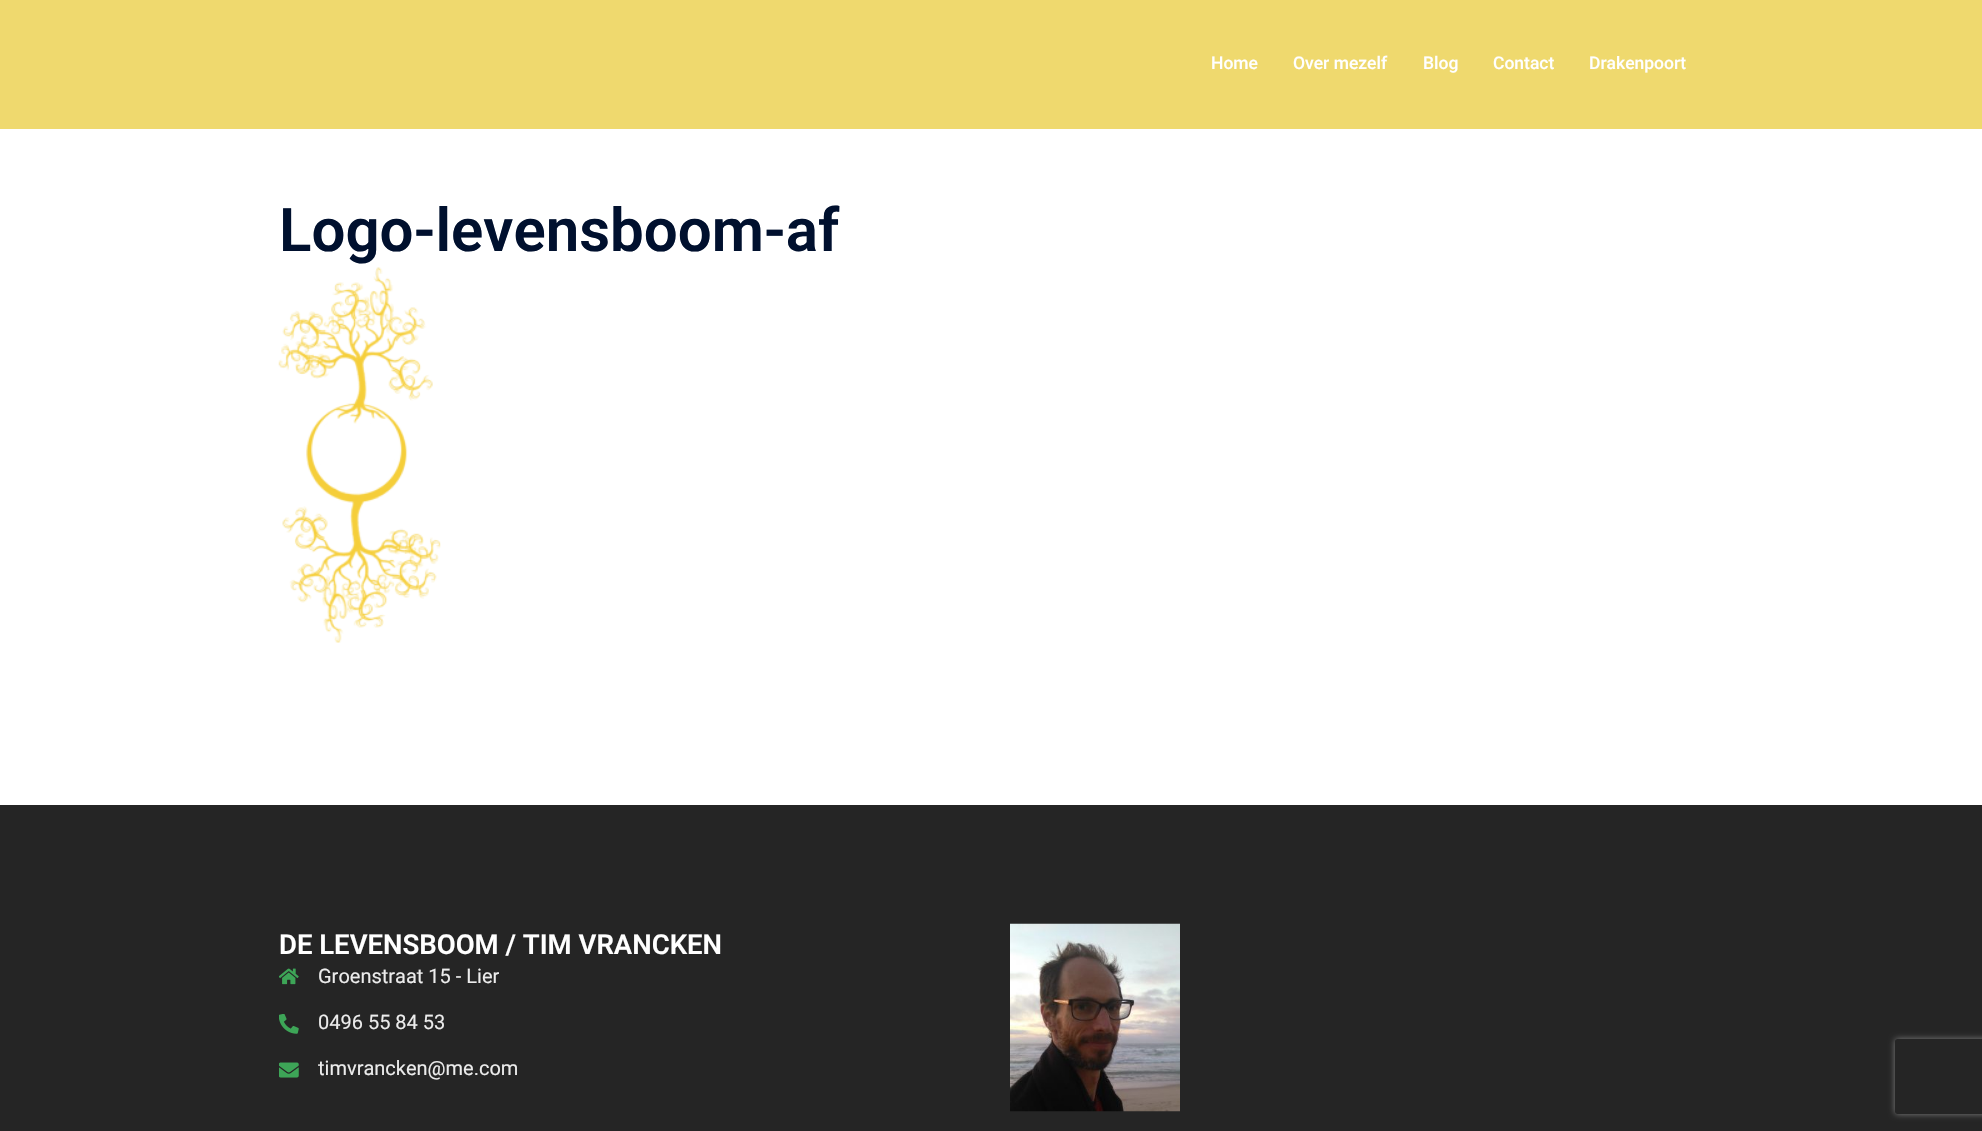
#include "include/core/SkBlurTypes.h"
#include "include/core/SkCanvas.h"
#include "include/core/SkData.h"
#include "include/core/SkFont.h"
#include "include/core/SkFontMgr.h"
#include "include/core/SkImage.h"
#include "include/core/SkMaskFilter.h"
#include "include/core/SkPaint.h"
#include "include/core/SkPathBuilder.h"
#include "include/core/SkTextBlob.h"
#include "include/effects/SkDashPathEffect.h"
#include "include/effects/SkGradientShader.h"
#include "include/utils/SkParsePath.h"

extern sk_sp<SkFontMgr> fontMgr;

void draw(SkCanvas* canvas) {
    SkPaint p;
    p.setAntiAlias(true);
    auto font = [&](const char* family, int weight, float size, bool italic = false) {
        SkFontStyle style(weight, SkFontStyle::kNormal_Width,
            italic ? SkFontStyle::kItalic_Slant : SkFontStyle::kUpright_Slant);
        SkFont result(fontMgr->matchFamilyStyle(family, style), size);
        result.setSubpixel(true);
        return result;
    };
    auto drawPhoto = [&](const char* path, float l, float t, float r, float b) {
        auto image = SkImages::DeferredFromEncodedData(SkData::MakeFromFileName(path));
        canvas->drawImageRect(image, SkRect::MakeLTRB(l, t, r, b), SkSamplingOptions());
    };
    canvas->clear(0xFFFFFFFF);
    p.setColor(0xFFEFD96E);
    canvas->drawRect(SkRect::MakeLTRB(0, 0, 1982, 129), p);
    auto font1 = font("Roboto", 500, 17.5f);
    p.setColor(0xFFFFFFFF);
    {
        const struct { const char* s; float x, y; } items[] = {
            {"Home", 1211, 69},
            {"Over mezelf", 1293, 69},
            {"Blog", 1423, 69},
            {"Contact", 1493, 69},
            {"Drakenpoort", 1589, 69},
        };
        for (auto [s, x, y] : items) {
            canvas->drawString(s, x, y, font1, p);
        }
    }
    auto font2 = font("Roboto", 600, 60);
    p.setColor(0xFF00102E);
    canvas->drawString("Logo-levensboom-af", 279, 251, font2, p);
    drawPhoto("media/1.png", 278, 267, 441, 643);
    p.setColor(0xFF252525);
    canvas->drawRect(SkRect::MakeLTRB(0, 805, 1982, 1131), p);
    auto font3 = font("Roboto", 600, 27.5f);
    p.setColor(0xFFFFFFFF);
    canvas->drawString("DE LEVENSBOOM / TIM VRANCKEN", 279, 954, font3, p);
    drawPhoto("media/2.png", 279, 968, 299, 985);
    auto font4 = font("Roboto", 400, 20);
    p.setColor(0xFFECECEC);
    canvas->drawString("Groenstraat 15 - Lier", 318, 983, font4, p);
    drawPhoto("media/3.png", 279, 1014, 299, 1034);
    canvas->drawString("0496 55 84 53", 318, 1029, font4, p);
    drawPhoto("media/4.png", 279, 1062, 299, 1078);
    canvas->drawString("timvrancken@me.com", 318, 1075, font4, p);
    drawPhoto("media/5.png", 1010, 923, 1180, 1112);
    canvas->save();
    canvas->clipPath(SkPathBuilder(SkPathFillType::kEvenOdd).moveTo(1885, 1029).lineTo(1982, 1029).lineTo(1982, 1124).lineTo(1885, 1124).close().moveTo(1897.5f, 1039).lineTo(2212.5f, 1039).cubicTo(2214, 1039, 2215, 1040, 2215, 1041.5f).lineTo(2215, 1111.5f).cubicTo(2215, 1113, 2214, 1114, 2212.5f, 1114).lineTo(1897.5f, 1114).cubicTo(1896, 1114, 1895, 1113, 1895, 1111.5f).lineTo(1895, 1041.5f).cubicTo(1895, 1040, 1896, 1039, 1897.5f, 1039).close().detach(), true);
    p.setColor(0xFF808080);
    p.setMaskFilter(SkMaskFilter::MakeBlur(kNormal_SkBlurStyle, 3));
    canvas->drawRoundRect(SkRect::MakeLTRB(1895, 1039, 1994, 1114), 2.5f, 2.5f, p);
    p.setMaskFilter(nullptr);
    canvas->restore();
}
